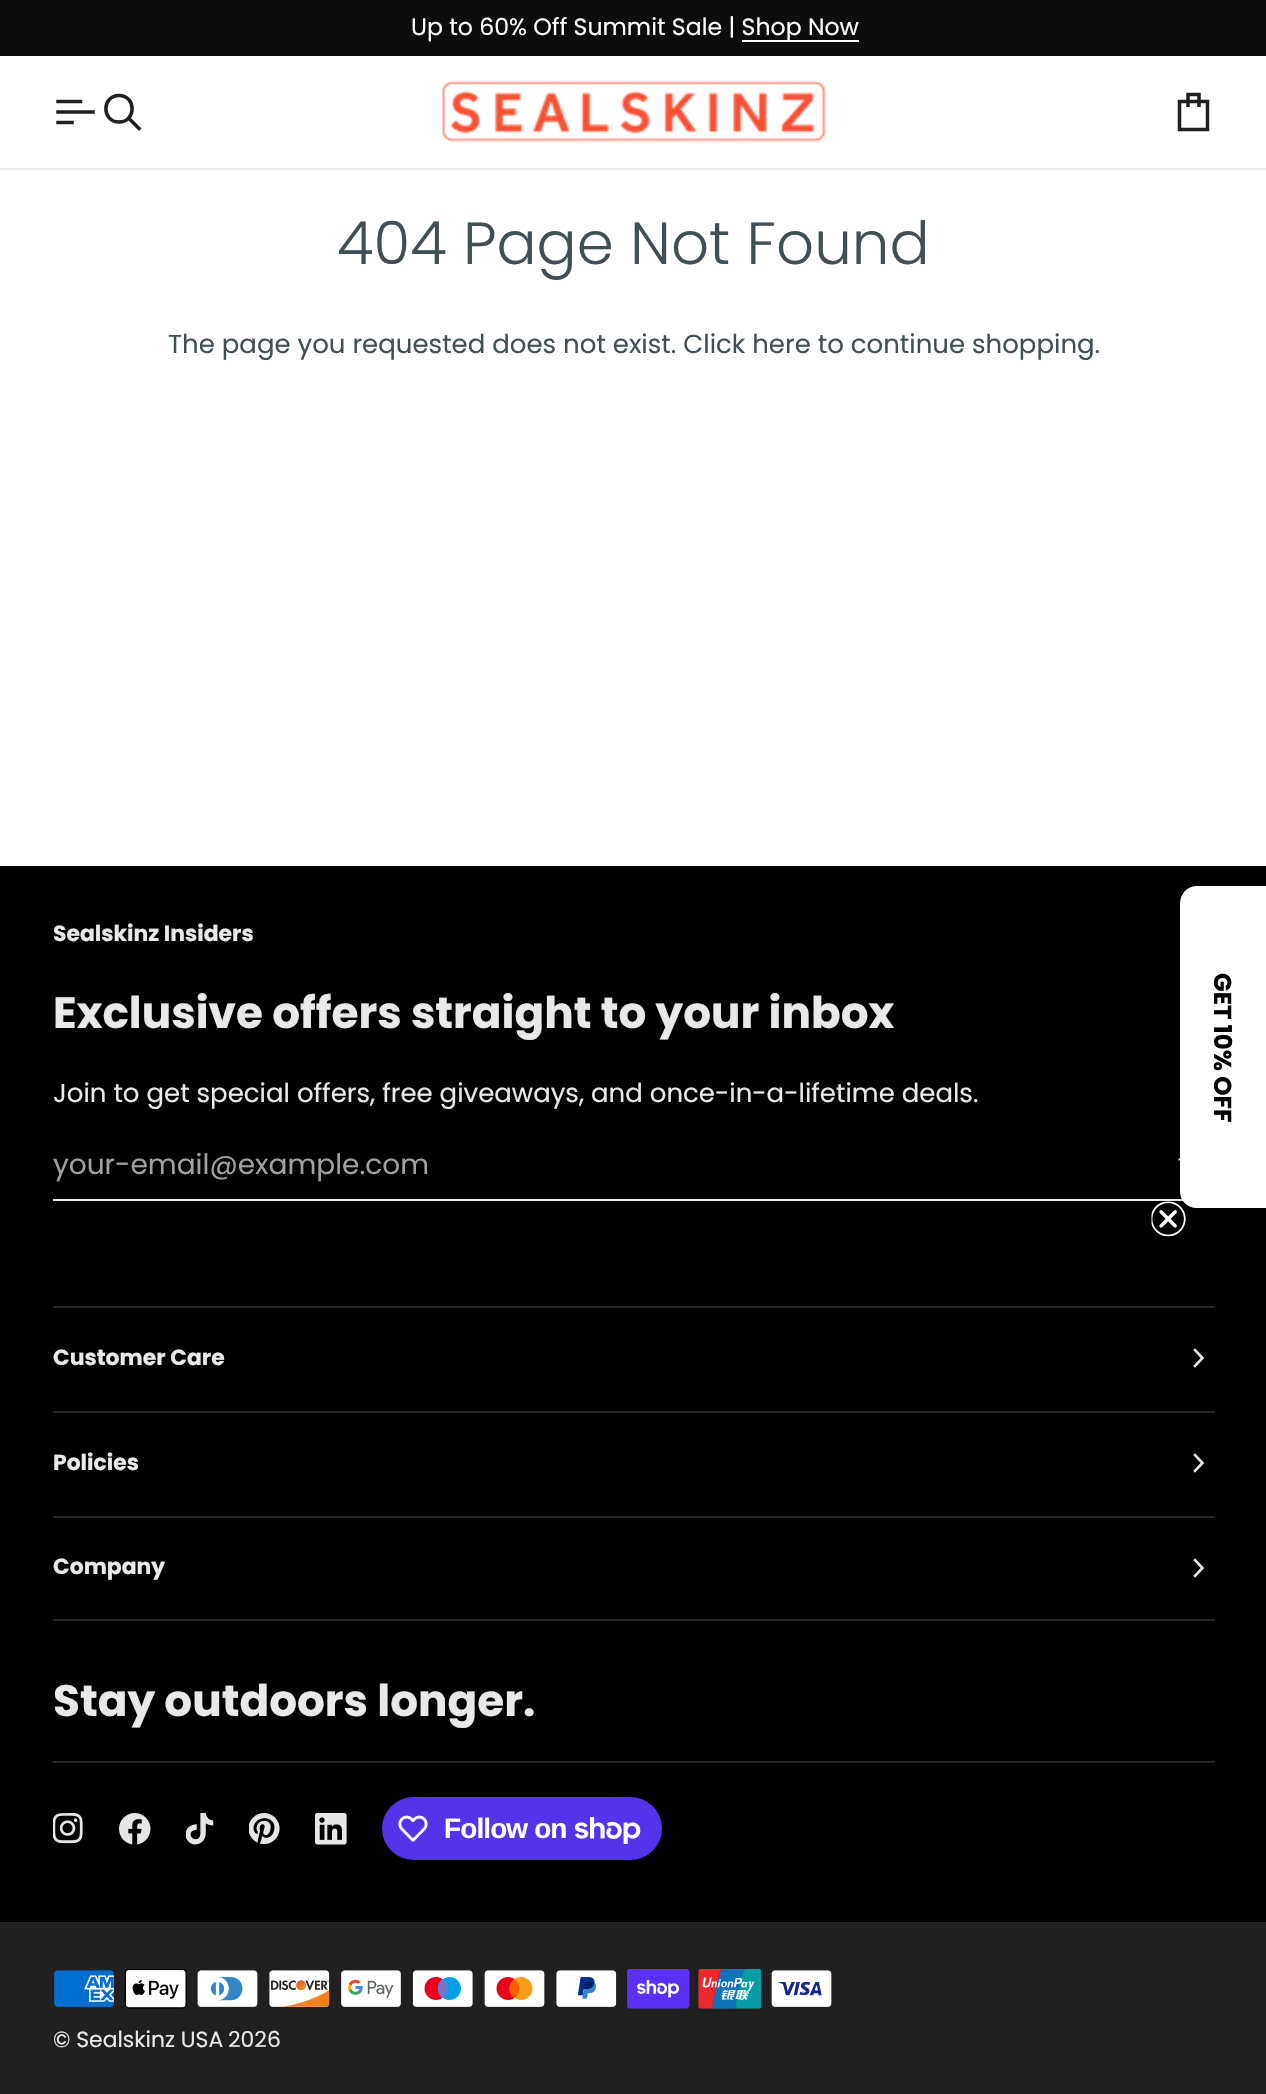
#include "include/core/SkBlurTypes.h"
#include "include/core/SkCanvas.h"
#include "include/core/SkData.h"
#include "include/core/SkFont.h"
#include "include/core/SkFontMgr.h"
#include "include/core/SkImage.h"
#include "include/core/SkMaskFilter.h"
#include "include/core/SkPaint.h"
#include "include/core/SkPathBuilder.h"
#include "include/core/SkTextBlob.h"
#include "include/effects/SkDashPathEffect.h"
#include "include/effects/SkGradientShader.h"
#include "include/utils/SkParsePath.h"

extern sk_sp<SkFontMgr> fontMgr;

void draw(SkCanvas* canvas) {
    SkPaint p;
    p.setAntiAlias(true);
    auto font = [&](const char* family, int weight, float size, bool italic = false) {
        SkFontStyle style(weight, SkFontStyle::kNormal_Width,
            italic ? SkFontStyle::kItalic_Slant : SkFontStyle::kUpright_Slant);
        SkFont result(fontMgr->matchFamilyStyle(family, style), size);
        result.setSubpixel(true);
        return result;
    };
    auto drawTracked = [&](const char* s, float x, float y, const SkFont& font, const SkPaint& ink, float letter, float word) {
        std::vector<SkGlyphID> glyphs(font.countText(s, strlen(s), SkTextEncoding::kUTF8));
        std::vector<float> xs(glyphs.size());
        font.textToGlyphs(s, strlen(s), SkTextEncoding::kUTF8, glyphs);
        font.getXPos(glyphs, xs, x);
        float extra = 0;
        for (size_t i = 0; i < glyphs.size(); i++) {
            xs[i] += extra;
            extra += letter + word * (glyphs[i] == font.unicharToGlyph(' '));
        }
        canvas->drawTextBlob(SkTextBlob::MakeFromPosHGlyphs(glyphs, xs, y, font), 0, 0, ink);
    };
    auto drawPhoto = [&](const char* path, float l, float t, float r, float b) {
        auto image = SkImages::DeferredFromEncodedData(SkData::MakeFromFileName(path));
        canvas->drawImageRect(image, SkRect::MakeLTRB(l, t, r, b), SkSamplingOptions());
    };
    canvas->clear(0xFFFFFFFF);
    p.setColor(0xFF0C0C0C);
    canvas->drawRect(SkRect::MakeLTRB(0, 0, 1266, 56), p);
    auto font1 = font("Poppins", 400, 23.6f);
    p.setColor(0xFFFFFFFF);
    canvas->drawString("Up to 60% Off Summit Sale | Shop Now", 411, 35, font1, p);
    canvas->drawRect(SkRect::MakeLTRB(742, 40, 859, 42), p);
    p.setColor(0xFFEEECEA);
    canvas->drawRect(SkRect::MakeLTRB(0, 168, 1266, 170), p);
    p.setStyle(SkPaint::kStroke_Style);
    p.setStrokeWidth(3.5f);
    p.setStrokeCap(SkPaint::kSquare_Cap);
    p.setColor(0xFF202020);
    canvas->drawPath(SkPathBuilder().moveTo(80.5f, 101.5f).lineTo(58, 101.5f).moveTo(93, 112).lineTo(58, 112).moveTo(72, 122.5f).lineTo(58, 122.5f).detach(), p);
    canvas->drawPath(SkPathBuilder().moveTo(119, 122).cubicTo(136.5f, 122, 136.5f, 95.5f, 119, 95.5f).cubicTo(101.5f, 95.5f, 101.5f, 122, 119, 122).close().moveTo(139, 128.5f).lineTo(129, 118.5f).detach(), p);
    drawPhoto("media/1.png", 441, 80, 827, 143);
    p.setStrokeCap(SkPaint::kButt_Cap);
    canvas->drawPath(SkPathBuilder().moveTo(1179.5f, 101.5f).lineTo(1207.5f, 101.5f).lineTo(1207.5f, 129.5f).lineTo(1179.5f, 129.5f).close().moveTo(1188, 107).lineTo(1188, 94.5f).lineTo(1199, 94.5f).lineTo(1199, 107).detach(), p);
    auto font2 = font("Poppins", 300, 59.5f);
    p.setStyle(SkPaint::kFill_Style);
    p.setColor(0xFF414F55);
    canvas->drawString("404 Page Not Found", 337, 264, font2, p);
    auto font3 = font("Poppins", 400, 26);
    canvas->drawString("The page you requested does not exist. Click here to continue shopping.", 168, 353, font3, p);
    p.setColor(0xFF000000);
    canvas->drawRect(SkRect::MakeLTRB(0, 866, 1266, 1922), p);
    auto font4 = font("Poppins", 700, 21.9f);
    p.setColor(0xFFE9E9E9);
    canvas->drawString("Sealskinz Insiders", 53, 941, font4, p);
    auto font5 = font("Poppins", 700, 43.75f);
    canvas->drawString("Exclusive offers straight to your inbox", 53, 1028, font5, p);
    canvas->drawString("Join to get special offers, free giveaways, and once-in-a-lifetime deals.", 53, 1102, font3, p);
    p.setColor(0xFFE6E6E6);
    canvas->drawRect(SkRect::MakeLTRB(53, 1199, 1183, 1201), p);
    auto font6 = font("Poppins", 400, 28);
    p.setColor(0xFFA1A1A1);
    canvas->drawString("your-email@example.com", 53, 1174, font6, p);
    p.setStyle(SkPaint::kStroke_Style);
    p.setStrokeWidth(1.8f);
    p.setColor(0xFFE6E6E6);
    canvas->drawPath(SkPathBuilder().moveTo(1206, 1152).lineTo(1213.5f, 1159.5f).lineTo(1206, 1166.5f).moveTo(1178.5f, 1159.5f).lineTo(1213.5f, 1159.5f).detach(), p);
    p.setStyle(SkPaint::kFill_Style);
    p.setColor(0xFF262626);
    canvas->drawRect(SkRect::MakeLTRB(53, 1306, 1215, 1308), p);
    canvas->drawRect(SkRect::MakeLTRB(53, 1411, 1215, 1413), p);
    p.setColor(0xFFE9E9E9);
    canvas->drawString("Customer Care", 53, 1365, font4, p);
    p.setStyle(SkPaint::kStroke_Style);
    p.setStrokeWidth(2.6f);
    p.setStrokeCap(SkPaint::kSquare_Cap);
    p.setColor(0xFFE6E6E6);
    canvas->drawPath(SkPathBuilder().moveTo(1195, 1366).lineTo(1202.5f, 1358).lineTo(1195, 1350).detach(), p);
    p.setStyle(SkPaint::kFill_Style);
    p.setColor(0xFF262626);
    canvas->drawRect(SkRect::MakeLTRB(53, 1516, 1215, 1518), p);
    p.setColor(0xFFE9E9E9);
    canvas->drawString("Policies", 53, 1470, font4, p);
    p.setStyle(SkPaint::kStroke_Style);
    p.setColor(0xFFE6E6E6);
    canvas->drawPath(SkPathBuilder().moveTo(1195, 1471).lineTo(1202.5f, 1463).lineTo(1195, 1455).detach(), p);
    p.setStyle(SkPaint::kFill_Style);
    p.setColor(0xFF262626);
    canvas->drawRect(SkRect::MakeLTRB(53, 1619, 1215, 1621), p);
    p.setColor(0xFFE9E9E9);
    canvas->drawString("Company", 53, 1574, font4, p);
    p.setStyle(SkPaint::kStroke_Style);
    p.setColor(0xFFE6E6E6);
    canvas->drawPath(SkPathBuilder().moveTo(1195, 1576).lineTo(1202.5f, 1568).lineTo(1195, 1560).detach(), p);
    p.setStyle(SkPaint::kFill_Style);
    p.setColor(0xFFE9E9E9);
    canvas->drawString("Stay outdoors longer.", 53, 1716, font5, p);
    p.setColor(0xFF262626);
    canvas->drawRect(SkRect::MakeLTRB(53, 1761, 1215, 1763), p);
    drawPhoto("media/2.png", 53, 1813, 83, 1844);
    drawPhoto("media/3.png", 119, 1813, 151, 1845);
    drawPhoto("media/4.png", 186, 1813, 214, 1845);
    drawPhoto("media/5.png", 249, 1813, 280, 1845);
    drawPhoto("media/6.png", 315, 1813, 347, 1845);
    p.setColor(0xFF5433EB);
    canvas->drawRoundRect(SkRect::MakeLTRB(382, 1797, 662, 1860), 31.5f, 31.5f, p);
    drawPhoto("media/7.png", 398, 1815, 428, 1842);
    auto font7 = font("Liberation Sans", 700, 28);
    p.setColor(0xFFFFFFFF);
    drawTracked("Follow on", 444, 1838, font7, p, -0.9f, 0);
    drawPhoto("media/8.png", 574, 1817, 641, 1844);
    canvas->drawPath(SkPathBuilder().moveTo(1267, 886).lineTo(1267, 1208).lineTo(1197, 1208).cubicTo(1187, 1208, 1180, 1201, 1180, 1191).lineTo(1180, 904).cubicTo(1180, 894, 1187, 886, 1197, 886).close().detach(), p);
    auto font8 = font("Poppins", 700, 24.5f);
    p.setColor(0xFF000000);
    canvas->save();
    canvas->rotate(90, 1214, 973);
    canvas->drawString("GET 10% OFF", 1214, 973, font8, p);
    canvas->restore();
    drawPhoto("media/9.png", 1151, 1201, 1186, 1237);
    p.setColor(0xFF202020);
    canvas->drawRect(SkRect::MakeLTRB(0, 1922, 1266, 2094), p);
    drawPhoto("media/10.png", 54, 1970, 114, 2007);
    drawPhoto("media/11.png", 124, 1969, 187, 2009);
    drawPhoto("media/12.png", 197, 1970, 258, 2007);
    drawPhoto("media/13.png", 269, 1970, 330, 2007);
    drawPhoto("media/14.png", 341, 1970, 401, 2007);
    drawPhoto("media/15.png", 412, 1970, 473, 2007);
    drawPhoto("media/16.png", 484, 1970, 545, 2007);
    drawPhoto("media/17.png", 556, 1970, 617, 2007);
    drawPhoto("media/18.png", 627, 1969, 690, 2009);
    drawPhoto("media/19.png", 698, 1969, 761, 2009);
    drawPhoto("media/20.png", 771, 1970, 832, 2007);
    auto font9 = font("Poppins", 400, 21.9f);
    p.setColor(0xFFE9E9E9);
    canvas->drawString("© Sealskinz USA", 53, 2047, font9, p);
    canvas->drawString("2026", 228, 2047, font9, p);
}
